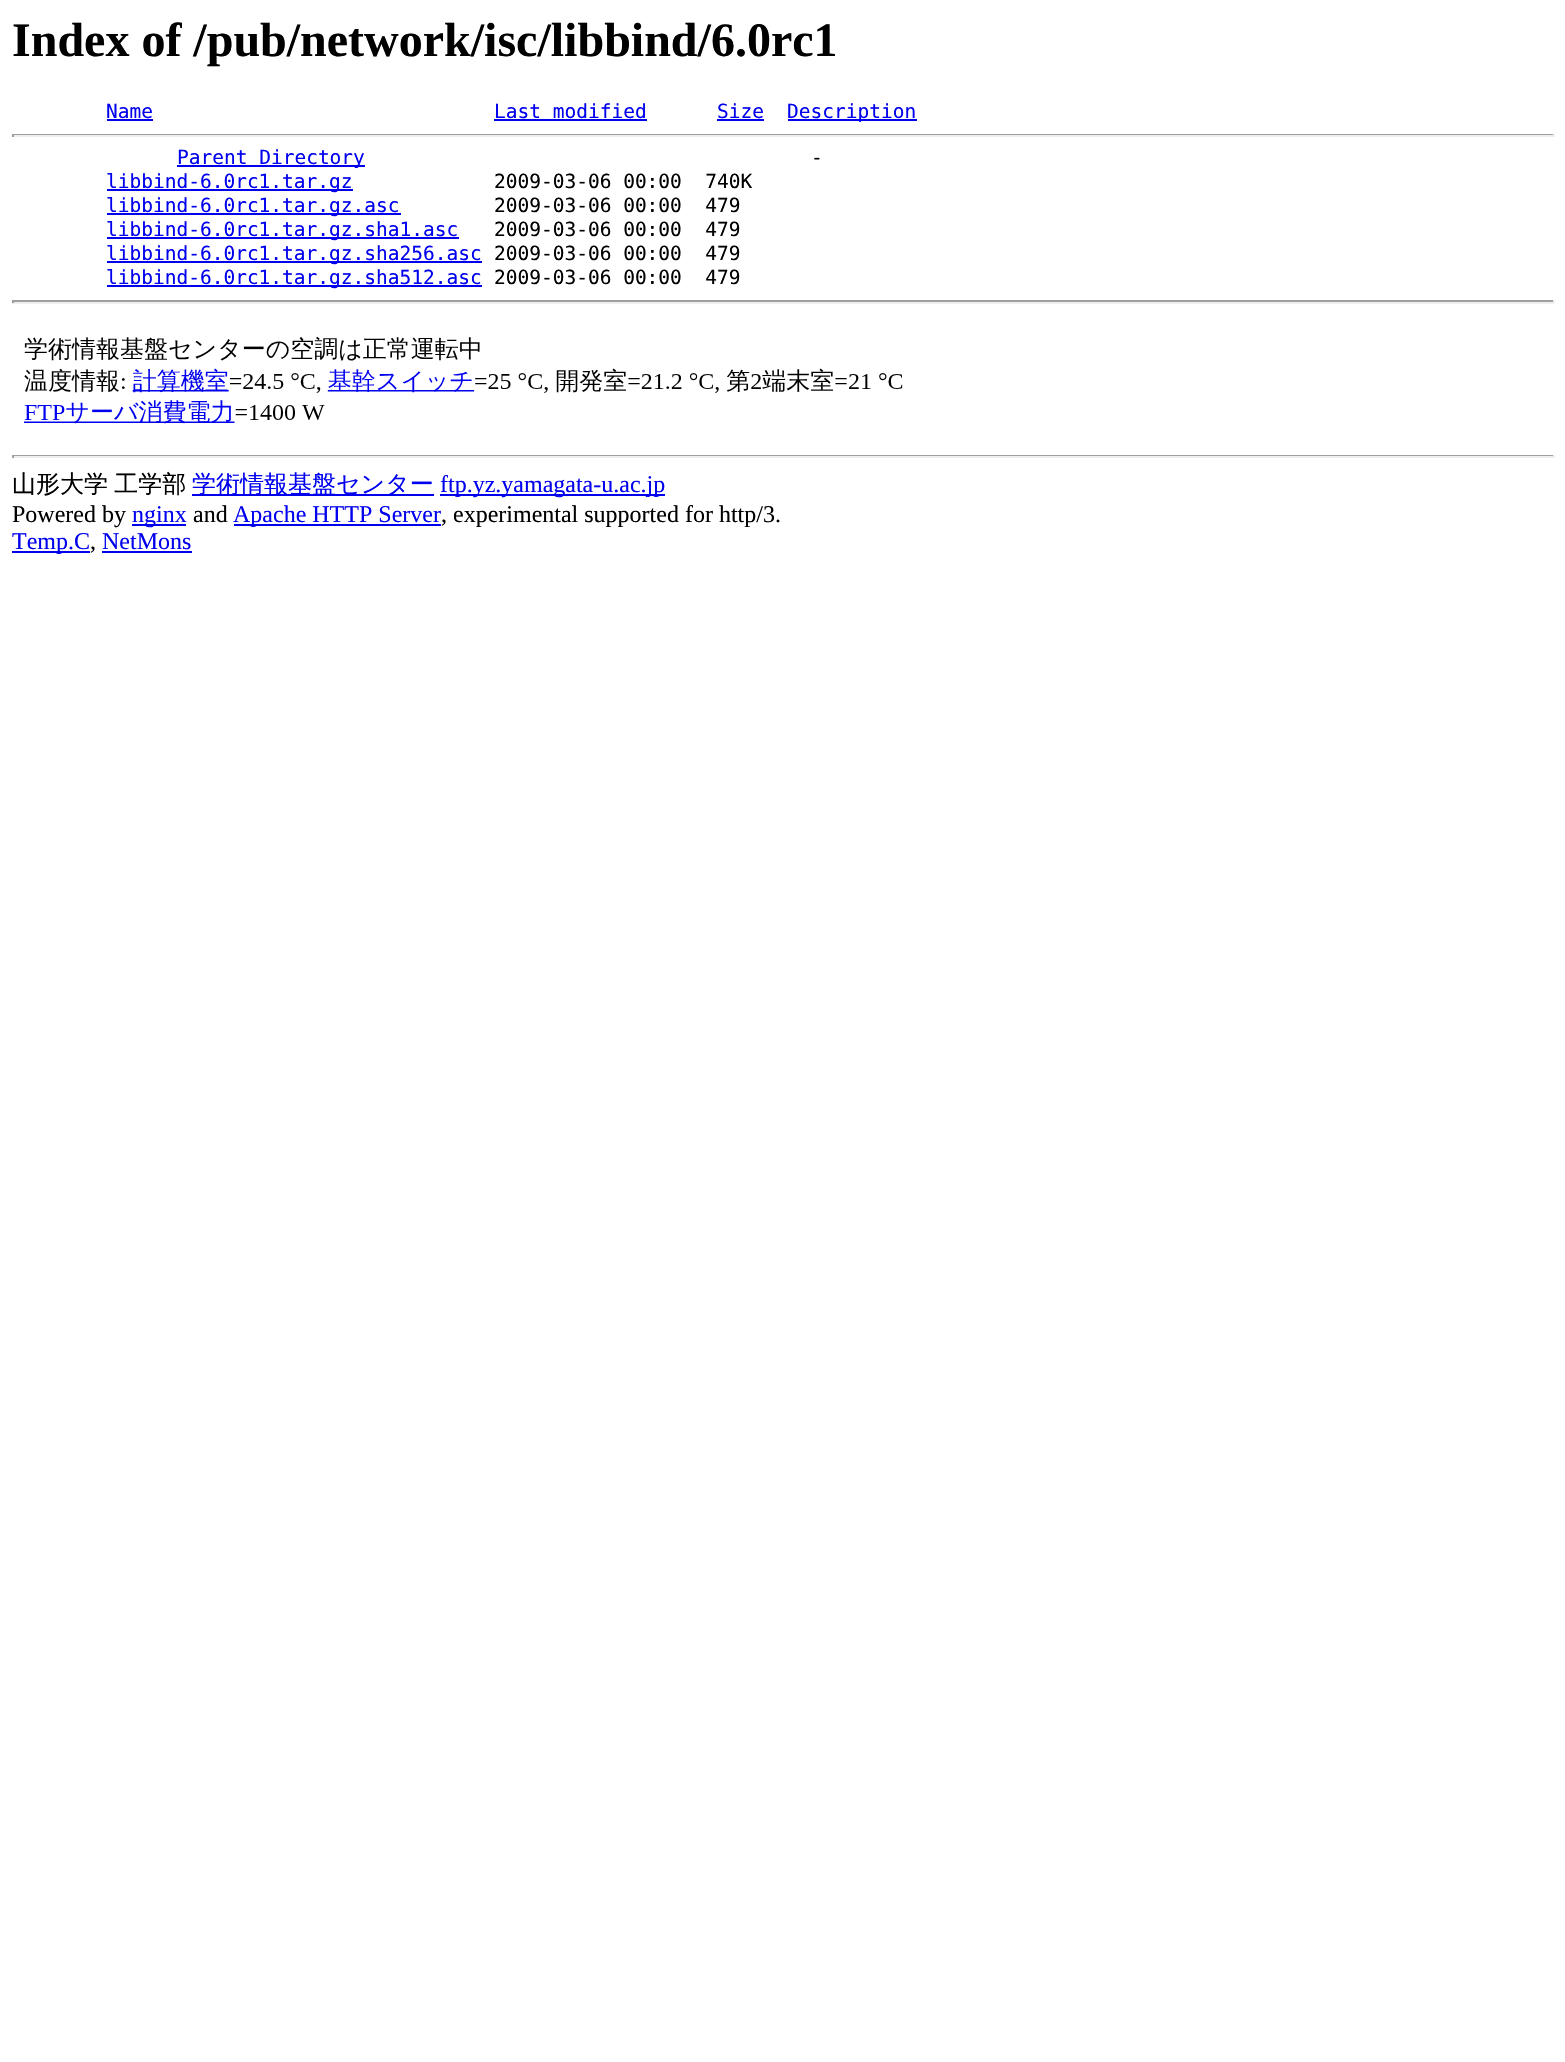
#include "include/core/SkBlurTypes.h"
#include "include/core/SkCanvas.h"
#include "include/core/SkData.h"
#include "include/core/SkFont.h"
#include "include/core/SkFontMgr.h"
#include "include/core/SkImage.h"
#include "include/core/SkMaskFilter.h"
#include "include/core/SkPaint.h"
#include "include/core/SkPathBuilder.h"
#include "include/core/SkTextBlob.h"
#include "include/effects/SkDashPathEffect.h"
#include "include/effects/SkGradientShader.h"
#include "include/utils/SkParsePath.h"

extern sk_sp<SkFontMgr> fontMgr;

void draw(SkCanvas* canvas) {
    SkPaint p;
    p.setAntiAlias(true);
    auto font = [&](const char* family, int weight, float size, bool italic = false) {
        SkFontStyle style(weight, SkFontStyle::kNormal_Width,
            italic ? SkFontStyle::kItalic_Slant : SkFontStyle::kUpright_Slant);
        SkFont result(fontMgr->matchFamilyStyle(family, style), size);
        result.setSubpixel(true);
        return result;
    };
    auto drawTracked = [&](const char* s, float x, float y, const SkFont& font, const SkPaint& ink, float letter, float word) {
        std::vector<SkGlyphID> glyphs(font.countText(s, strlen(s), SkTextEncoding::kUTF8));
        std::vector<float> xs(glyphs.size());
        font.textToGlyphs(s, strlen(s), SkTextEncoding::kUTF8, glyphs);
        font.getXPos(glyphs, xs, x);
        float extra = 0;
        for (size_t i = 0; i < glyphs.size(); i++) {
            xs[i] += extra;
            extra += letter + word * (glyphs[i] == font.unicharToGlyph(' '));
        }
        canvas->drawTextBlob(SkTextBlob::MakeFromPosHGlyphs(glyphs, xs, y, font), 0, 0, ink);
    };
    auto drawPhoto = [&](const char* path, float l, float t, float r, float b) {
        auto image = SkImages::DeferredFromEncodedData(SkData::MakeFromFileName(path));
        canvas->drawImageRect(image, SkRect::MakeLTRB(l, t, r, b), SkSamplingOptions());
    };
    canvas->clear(0xFFFFFFFF);
    auto font1 = font("Liberation Serif", 700, 48);
    p.setColor(0xFF000000);
    canvas->drawString("Index of /pub/network/isc/libbind/6.0rc1", 12, 56, font1, p);
    auto font2 = font("DejaVu Sans Mono", 400, 19.5f);
    p.setColor(0xFF0000EE);
    canvas->drawString("Name", 106, 118, font2, p);
    canvas->drawRect(SkRect::MakeLTRB(107, 119, 153, 121), p);
    canvas->drawString("Last modified", 494, 118, font2, p);
    canvas->drawRect(SkRect::MakeLTRB(494, 119, 647, 121), p);
    canvas->drawString("Size", 717, 118, font2, p);
    canvas->drawRect(SkRect::MakeLTRB(717, 119, 764, 121), p);
    canvas->drawRect(SkRect::MakeLTRB(788, 119, 917, 121), p);
    canvas->drawString("Description", 787, 118, font2, p);
    {
        const struct { float l, t, r, b; SkColor color; } items[] = {
            {12, 134, 1554, 135, 0xFF9F9F9F},
            {1553, 134, 1555, 137, 0xFFEEEEEE},
            {12, 135, 1554, 137, 0xFFEEEEEE},
            {12, 134, 14, 137, 0xFF9F9F9F},
            {177, 165, 365, 167, 0xFF0000EE},
        };
        for (auto [l, t, r, b, color] : items) {
            p.setColor(color);
            canvas->drawRect(SkRect::MakeLTRB(l, t, r, b), p);
        }
    }
    canvas->drawString("Parent Directory", 177, 164, font2, p);
    p.setColor(0xFF000000);
    canvas->drawString("-", 811, 164, font2, p);
    p.setColor(0xFF0000EE);
    canvas->drawRect(SkRect::MakeLTRB(107, 189, 353, 191), p);
    canvas->drawString("libbind-6.0rc1.tar.gz", 106, 188, font2, p);
    p.setColor(0xFF000000);
    canvas->drawString("2009-03-06 00:00  740K", 494, 188, font2, p);
    p.setColor(0xFF0000EE);
    canvas->drawRect(SkRect::MakeLTRB(107, 213, 401, 215), p);
    canvas->drawString("libbind-6.0rc1.tar.gz.asc", 106, 212, font2, p);
    p.setColor(0xFF000000);
    canvas->drawString("2009-03-06 00:00  479", 494, 212, font2, p);
    p.setColor(0xFF0000EE);
    canvas->drawRect(SkRect::MakeLTRB(107, 237, 459, 239), p);
    canvas->drawString("libbind-6.0rc1.tar.gz.sha1.asc", 106, 236, font2, p);
    p.setColor(0xFF000000);
    canvas->drawString("2009-03-06 00:00  479", 494, 236, font2, p);
    p.setColor(0xFF0000EE);
    canvas->drawRect(SkRect::MakeLTRB(107, 261, 482, 263), p);
    canvas->drawString("libbind-6.0rc1.tar.gz.sha256.asc", 106, 260, font2, p);
    p.setColor(0xFF000000);
    canvas->drawString("2009-03-06 00:00  479", 494, 260, font2, p);
    p.setColor(0xFF0000EE);
    canvas->drawRect(SkRect::MakeLTRB(107, 285, 482, 287), p);
    canvas->drawString("libbind-6.0rc1.tar.gz.sha512.asc", 106, 284, font2, p);
    p.setColor(0xFF000000);
    canvas->drawString("2009-03-06 00:00  479", 494, 284, font2, p);
    {
        const struct { float l, t, r, b; SkColor color; } items[] = {
            {12, 300, 1554, 302, 0xFF9F9F9F},
            {1553, 300, 1555, 303, 0xFFEEEEEE},
            {12, 302, 1554, 304, 0xFFEEEEEE},
            {12, 300, 14, 303, 0xFF9F9F9F},
        };
        for (auto [l, t, r, b, color] : items) {
            p.setColor(color);
            canvas->drawRect(SkRect::MakeLTRB(l, t, r, b), p);
        }
    }
    drawPhoto("media/1.png", 24, 336, 903, 424);
    {
        const struct { float l, t, r, b; SkColor color; } items[] = {
            {12, 455, 1554, 456, 0xFF9F9F9F},
            {1553, 455, 1555, 458, 0xFFEEEEEE},
            {12, 456, 1554, 458, 0xFFEEEEEE},
            {12, 455, 14, 458, 0xFF9F9F9F},
        };
        for (auto [l, t, r, b, color] : items) {
            p.setColor(color);
            canvas->drawRect(SkRect::MakeLTRB(l, t, r, b), p);
        }
    }
    auto font3 = font("WenQuanYi Zen Hei", 500, 24);
    p.setColor(0xFF000000);
    drawTracked("山形大学 工学部", 12, 492, font3, p, 0, -1);
    p.setColor(0xFF0000EE);
    canvas->drawRect(SkRect::MakeLTRB(192, 494, 434, 496), p);
    canvas->drawString("学術情報基盤センター", 192, 492, font3, p);
    canvas->drawRect(SkRect::MakeLTRB(440, 494, 665, 496), p);
    auto font4 = font("Liberation Serif", 400, 24);
    canvas->drawString("ftp.yz.yamagata-u.ac.jp", 440, 492, font4, p);
    p.setColor(0xFF000000);
    canvas->drawString("Powered by", 12, 522, font4, p);
    p.setColor(0xFF0000EE);
    canvas->drawRect(SkRect::MakeLTRB(132, 524, 186, 526), p);
    canvas->drawString("nginx", 132, 522, font4, p);
    p.setColor(0xFF000000);
    canvas->drawString("and", 193, 522, font4, p);
    p.setColor(0xFF0000EE);
    canvas->drawRect(SkRect::MakeLTRB(234, 524, 441, 526), p);
    canvas->drawString("Apache HTTP Server", 233, 522, font4, p);
    p.setColor(0xFF000000);
    canvas->drawString(", experimental supported for http/3.", 441, 522, font4, p);
    p.setColor(0xFF0000EE);
    canvas->drawRect(SkRect::MakeLTRB(12, 551, 90, 553), p);
    canvas->drawString("Temp.C", 12, 549, font4, p);
    p.setColor(0xFF000000);
    canvas->drawString(",", 90, 549, font4, p);
    p.setColor(0xFF0000EE);
    canvas->drawString("NetMons", 102, 549, font4, p);
    canvas->drawRect(SkRect::MakeLTRB(102, 551, 192, 553), p);
}
